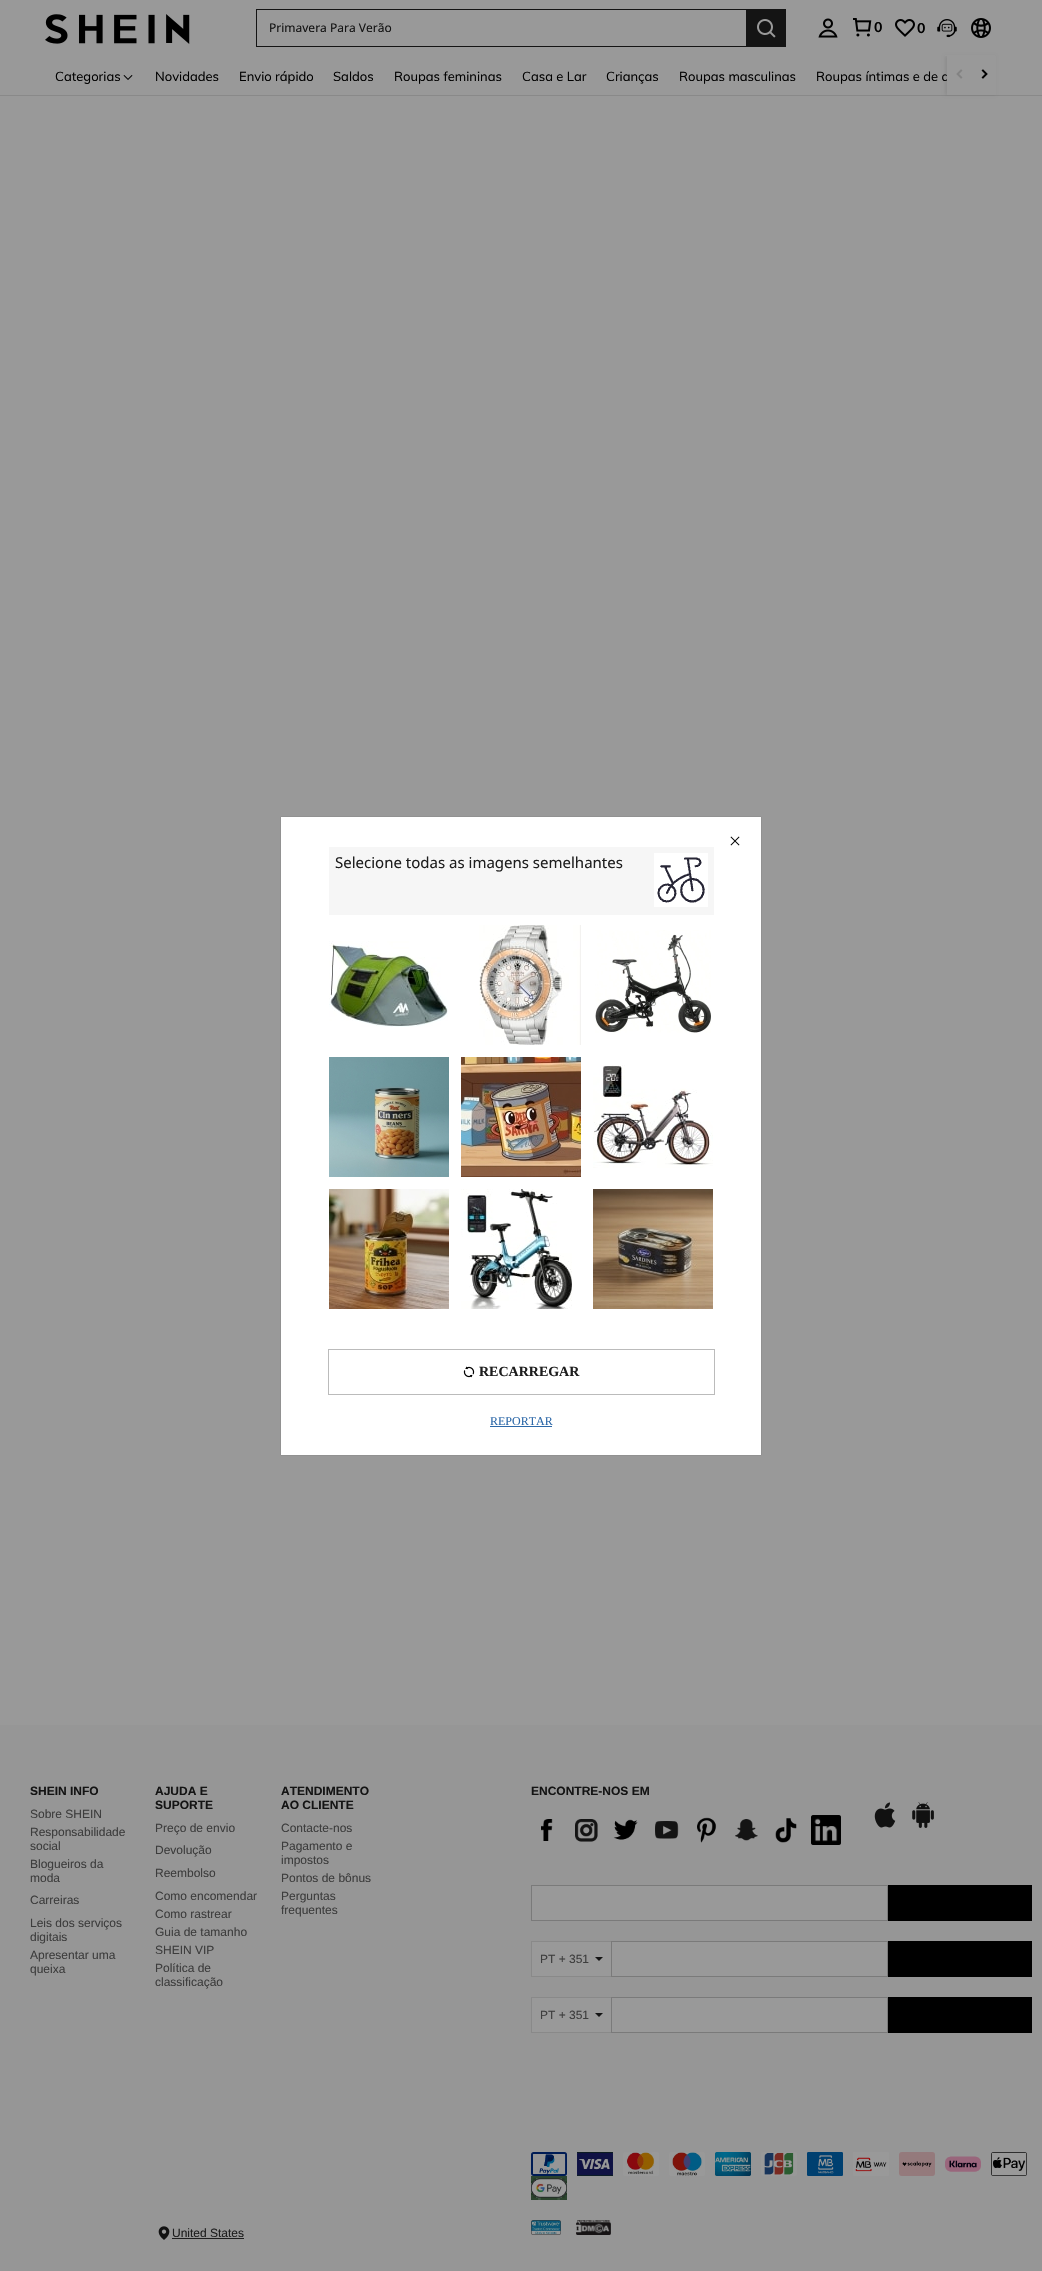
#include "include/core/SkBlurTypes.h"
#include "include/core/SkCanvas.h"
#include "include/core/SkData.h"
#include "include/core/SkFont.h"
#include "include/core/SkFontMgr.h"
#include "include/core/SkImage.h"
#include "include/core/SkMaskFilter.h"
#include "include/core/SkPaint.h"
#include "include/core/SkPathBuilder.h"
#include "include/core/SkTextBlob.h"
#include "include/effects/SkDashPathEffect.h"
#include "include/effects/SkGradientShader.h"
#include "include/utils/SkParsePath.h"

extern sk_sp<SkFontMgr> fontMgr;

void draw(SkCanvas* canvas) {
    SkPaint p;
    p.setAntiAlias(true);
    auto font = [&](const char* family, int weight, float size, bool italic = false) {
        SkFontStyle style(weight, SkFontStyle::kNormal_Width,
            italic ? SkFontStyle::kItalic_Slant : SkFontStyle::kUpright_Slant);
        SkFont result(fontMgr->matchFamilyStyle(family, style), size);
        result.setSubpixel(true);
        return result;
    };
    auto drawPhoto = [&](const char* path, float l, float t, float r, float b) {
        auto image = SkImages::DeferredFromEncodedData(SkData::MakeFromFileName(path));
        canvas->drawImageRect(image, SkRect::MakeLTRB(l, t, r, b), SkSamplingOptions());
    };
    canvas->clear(0xFF999999);
    p.setColor(0xFF898989);
    canvas->drawRect(SkRect::MakeLTRB(0, 95, 1042, 96), p);
    p.setColor(0x14000000);
    p.setMaskFilter(SkMaskFilter::MakeBlur(kNormal_SkBlurStyle, 1.5f));
    canvas->drawRect(SkRect::MakeLTRB(945, 56, 995, 95), p);
    p.setMaskFilter(nullptr);
    p.setColor(0xFF999999);
    canvas->drawRect(SkRect::MakeLTRB(945, 55, 995, 56), p);
    drawPhoto("media/1.png", 45, 14, 190, 44);
    {
        const struct { float l, t, r, b; SkColor color; } items[] = {
            {256, 9, 746, 10, 0xFF141414},
            {256, 46, 746, 47, 0xFF141414},
            {256, 9, 257, 47, 0xFF141414},
        };
        for (auto [l, t, r, b, color] : items) {
            p.setColor(color);
            canvas->drawRect(SkRect::MakeLTRB(l, t, r, b), p);
        }
    }
    auto font1 = font("Noto Sans", 400, 12);
    canvas->drawString("Primavera Para Verão", 269, 32, font1, p);
    canvas->drawRect(SkRect::MakeLTRB(746, 9, 786, 47), p);
    drawPhoto("media/2.png", 757, 19, 776, 38);
    drawPhoto("media/3.png", 818, 18, 838, 38);
    drawPhoto("media/4.png", 853, 18, 872, 37);
    auto font2 = font("Muli", 700, 14);
    p.setColor(0xFF000000);
    canvas->drawString("0", 874, 32, font2, p);
    drawPhoto("media/5.png", 895, 19, 915, 37);
    canvas->drawString("0", 917, 33, font2, p);
    drawPhoto("media/6.png", 937, 19, 957, 38);
    drawPhoto("media/7.png", 971, 18, 991, 38);
    auto font3 = font("Muli", 400, 13);
    canvas->drawString("Categorias", 55, 81, font3, p);
    drawPhoto("media/8.png", 123, 75, 133, 80);
    {
        const struct { const char* s; float x, y; } items[] = {
            {"Novidades", 155, 81},
            {"Envio rápido", 239, 81},
            {"Saldos", 333, 81},
            {"Roupas femininas", 394, 81},
            {"Casa e Lar", 522, 81},
            {"Crianças", 606, 81},
            {"Roupas masculinas", 679, 81},
            {"Roupas íntimas e de d", 816, 81},
        };
        for (auto [s, x, y] : items) {
            canvas->drawString(s, x, y, font3, p);
        }
    }
    p.setColor(0xFF999999);
    canvas->drawRect(SkRect::MakeLTRB(947, 56, 996, 95), p);
    drawPhoto("media/9.png", 956, 69, 963, 79);
    drawPhoto("media/10.png", 981, 69, 988, 79);
    p.setColor(0xFF969696);
    canvas->drawRect(SkRect::MakeLTRB(0, 1725, 1042, 2271), p);
    auto font4 = font("Liberation Sans", 700, 12);
    p.setColor(0xFF141414);
    canvas->drawString("SHEIN INFO", 30, 1795, font4, p);
    auto font5 = font("Liberation Sans", 400, 12);
    p.setColor(0xFF3D3D3D);
    {
        const struct { const char* s; float x, y; } items[] = {
            {"Sobre SHEIN", 30, 1818},
            {"Responsabilidade", 30, 1836},
            {"social", 30, 1850},
            {"Blogueiros da", 30, 1868},
            {"moda", 30, 1882},
            {"Carreiras", 30, 1904},
            {"Leis dos serviços", 30, 1927},
            {"digitais", 30, 1941},
            {"Apresentar uma", 30, 1959},
            {"queixa", 30, 1973},
        };
        for (auto [s, x, y] : items) {
            canvas->drawString(s, x, y, font5, p);
        }
    }
    p.setColor(0xFF141414);
    canvas->drawString("AJUDA E", 155, 1795, font4, p);
    canvas->drawString("SUPORTE", 155, 1809, font4, p);
    p.setColor(0xFF3D3D3D);
    {
        const struct { const char* s; float x, y; } items[] = {
            {"Preço de envio", 155, 1832},
            {"Devolução", 155, 1854},
            {"Reembolso", 155, 1877},
            {"Como encomendar", 155, 1900},
            {"Como rastrear", 155, 1918},
            {"Guia de tamanho", 155, 1936},
            {"SHEIN VIP", 155, 1954},
            {"Política de", 155, 1972},
            {"classificação", 155, 1986},
        };
        for (auto [s, x, y] : items) {
            canvas->drawString(s, x, y, font5, p);
        }
    }
    p.setColor(0xFF141414);
    canvas->drawString("ATENDIMENTO", 281, 1795, font4, p);
    canvas->drawString("AO CLIENTE", 281, 1809, font4, p);
    p.setColor(0xFF3D3D3D);
    {
        const struct { const char* s; float x, y; } items[] = {
            {"Contacte-nos", 281, 1832},
            {"Pagamento e", 281, 1850},
            {"impostos", 281, 1864},
            {"Pontos de bônus", 281, 1882},
            {"Perguntas", 281, 1900},
            {"frequentes", 281, 1914},
        };
        for (auto [s, x, y] : items) {
            canvas->drawString(s, x, y, font5, p);
        }
    }
    p.setColor(0xFF141414);
    canvas->drawString("ENCONTRE-NOS EM", 531, 1795, font4, p);
    drawPhoto("media/11.png", 541, 1819, 553, 1841);
    drawPhoto("media/12.png", 575, 1819, 598, 1842);
    drawPhoto("media/13.png", 613, 1819, 638, 1840);
    drawPhoto("media/14.png", 655, 1821, 679, 1839);
    drawPhoto("media/15.png", 697, 1817, 717, 1843);
    drawPhoto("media/16.png", 735, 1819, 758, 1841);
    drawPhoto("media/17.png", 775, 1818, 797, 1843);
    drawPhoto("media/18.png", 811, 1815, 841, 1845);
    drawPhoto("media/19.png", 874, 1802, 896, 1828);
    drawPhoto("media/20.png", 912, 1802, 934, 1828);
    p.setColor(0xFF999999);
    canvas->drawRect(SkRect::MakeLTRB(531.5f, 1885.5f, 887.5f, 1920.5f), p);
    p.setStyle(SkPaint::kStroke_Style);
    p.setStrokeWidth(1);
    p.setColor(0xFF7A7A7A);
    canvas->drawRect(SkRect::MakeLTRB(531.5f, 1885.5f, 887.5f, 1920.5f), p);
    p.setStyle(SkPaint::kFill_Style);
    {
        const struct { float l, t, r, b; SkColor color; } items[] = {
            {888, 1885, 1032, 1921, 0xFF000000},
            {532, 1942, 611, 1976, 0xFF999999},
            {531, 1941, 611, 1942, 0xFF898989},
            {531, 1976, 611, 1977, 0xFF898989},
            {531, 1941, 532, 1977, 0xFF898989},
        };
        for (auto [l, t, r, b, color] : items) {
            p.setColor(color);
            canvas->drawRect(SkRect::MakeLTRB(l, t, r, b), p);
        }
    }
    p.setColor(0xFF3D3D3D);
    canvas->drawString("PT + 351", 540, 1963, font5, p);
    p.setColor(0xFF141414);
    canvas->drawPath(SkPathBuilder().moveTo(595, 1957).lineTo(603, 1957).lineTo(599, 1961).close().detach(), p);
    p.setColor(0xFF999999);
    canvas->drawRect(SkRect::MakeLTRB(611.5f, 1941.5f, 887.5f, 1976.5f), p);
    p.setStyle(SkPaint::kStroke_Style);
    p.setColor(0xFF7A7A7A);
    canvas->drawRect(SkRect::MakeLTRB(611.5f, 1941.5f, 887.5f, 1976.5f), p);
    p.setStyle(SkPaint::kFill_Style);
    {
        const struct { float l, t, r, b; SkColor color; } items[] = {
            {888, 1941, 1032, 1977, 0xFF000000},
            {532, 1998, 611, 2032, 0xFF999999},
            {531, 1997, 611, 1998, 0xFF898989},
            {531, 2032, 611, 2033, 0xFF898989},
            {531, 1997, 532, 2033, 0xFF898989},
        };
        for (auto [l, t, r, b, color] : items) {
            p.setColor(color);
            canvas->drawRect(SkRect::MakeLTRB(l, t, r, b), p);
        }
    }
    p.setColor(0xFF3D3D3D);
    canvas->drawString("PT + 351", 540, 2019, font5, p);
    p.setColor(0xFF141414);
    canvas->drawPath(SkPathBuilder().moveTo(595, 2013).lineTo(603, 2013).lineTo(599, 2017).close().detach(), p);
    p.setColor(0xFF999999);
    canvas->drawRect(SkRect::MakeLTRB(611.5f, 1997.5f, 887.5f, 2032.5f), p);
    p.setStyle(SkPaint::kStroke_Style);
    p.setColor(0xFF7A7A7A);
    canvas->drawRect(SkRect::MakeLTRB(611.5f, 1997.5f, 887.5f, 2032.5f), p);
    p.setStyle(SkPaint::kFill_Style);
    p.setColor(0xFF000000);
    canvas->drawRect(SkRect::MakeLTRB(888, 1997, 1032, 2033), p);
    drawPhoto("media/21.png", 531, 2152, 567, 2176);
    drawPhoto("media/22.png", 577, 2152, 613, 2176);
    drawPhoto("media/23.png", 623, 2152, 659, 2176);
    drawPhoto("media/24.png", 669, 2152, 705, 2176);
    drawPhoto("media/25.png", 715, 2152, 751, 2176);
    drawPhoto("media/26.png", 761, 2152, 797, 2176);
    drawPhoto("media/27.png", 807, 2152, 843, 2176);
    drawPhoto("media/28.png", 853, 2152, 889, 2176);
    drawPhoto("media/29.png", 899, 2152, 935, 2176);
    drawPhoto("media/30.png", 945, 2156, 981, 2172);
    drawPhoto("media/31.png", 991, 2152, 1027, 2176);
    drawPhoto("media/32.png", 531, 2176, 567, 2200);
    drawPhoto("media/33.png", 158, 2226, 170, 2240);
    p.setColor(0xFF1E1E1E);
    canvas->drawString("United States", 172, 2237, font5, p);
    canvas->drawRect(SkRect::MakeLTRB(172, 2238, 244, 2239), p);
    drawPhoto("media/34.png", 531, 2220, 561, 2235);
    drawPhoto("media/35.png", 576, 2220, 611, 2235);
    p.setColor(0x4D000000);
    p.setMaskFilter(SkMaskFilter::MakeBlur(kNormal_SkBlurStyle, 0.5f));
    canvas->drawRect(SkRect::MakeLTRB(281, 817, 761, 1455), p);
    p.setMaskFilter(nullptr);
    p.setColor(0xFFFFFFFF);
    canvas->drawRect(SkRect::MakeLTRB(281, 817, 761, 1455), p);
    drawPhoto("media/36.png", 730, 836, 740, 846);
    p.setColor(0xFFF6F6F6);
    canvas->drawRect(SkRect::MakeLTRB(329, 847, 714, 915), p);
    auto font6 = font("Noto Sans", 400, 15);
    p.setColor(0xFF1E1E1E);
    canvas->drawString("Selecione todas as imagens semelhantes", 335, 868, font6, p);
    p.setColor(0xFFFFFFFF);
    canvas->drawRect(SkRect::MakeLTRB(654, 853, 708, 907), p);
    drawPhoto("media/37.png", 657, 857, 705, 903);
    drawPhoto("media/38.png", 329, 941, 448, 1027);
    drawPhoto("media/39.png", 479, 925, 581, 1045);
    drawPhoto("media/40.png", 595, 930, 711, 1033);
    drawPhoto("media/41.png", 329, 1057, 449, 1177);
    drawPhoto("media/42.png", 461, 1057, 581, 1177);
    drawPhoto("media/43.png", 593, 1065, 713, 1168);
    drawPhoto("media/44.png", 329, 1189, 449, 1309);
    drawPhoto("media/45.png", 461, 1189, 572, 1309);
    drawPhoto("media/46.png", 593, 1189, 713, 1309);
    p.setStyle(SkPaint::kStroke_Style);
    p.setColor(0xFFBBBBBB);
    canvas->drawRect(SkRect::MakeLTRB(328.5f, 1349.5f, 714.5f, 1394.5f), p);
    drawPhoto("media/47.png", 463, 1366, 475, 1378);
    auto font7 = font("Liberation Serif", 700, 14);
    p.setStyle(SkPaint::kFill_Style);
    p.setColor(0xFF1E1E1E);
    canvas->drawString("RECARREGAR", 479, 1376, font7, p);
    auto font8 = font("Liberation Serif", 400, 12);
    p.setColor(0xFF2D68A8);
    canvas->drawString("REPORTAR", 490, 1425, font8, p);
    canvas->drawRect(SkRect::MakeLTRB(490, 1426, 552, 1427), p);
}
